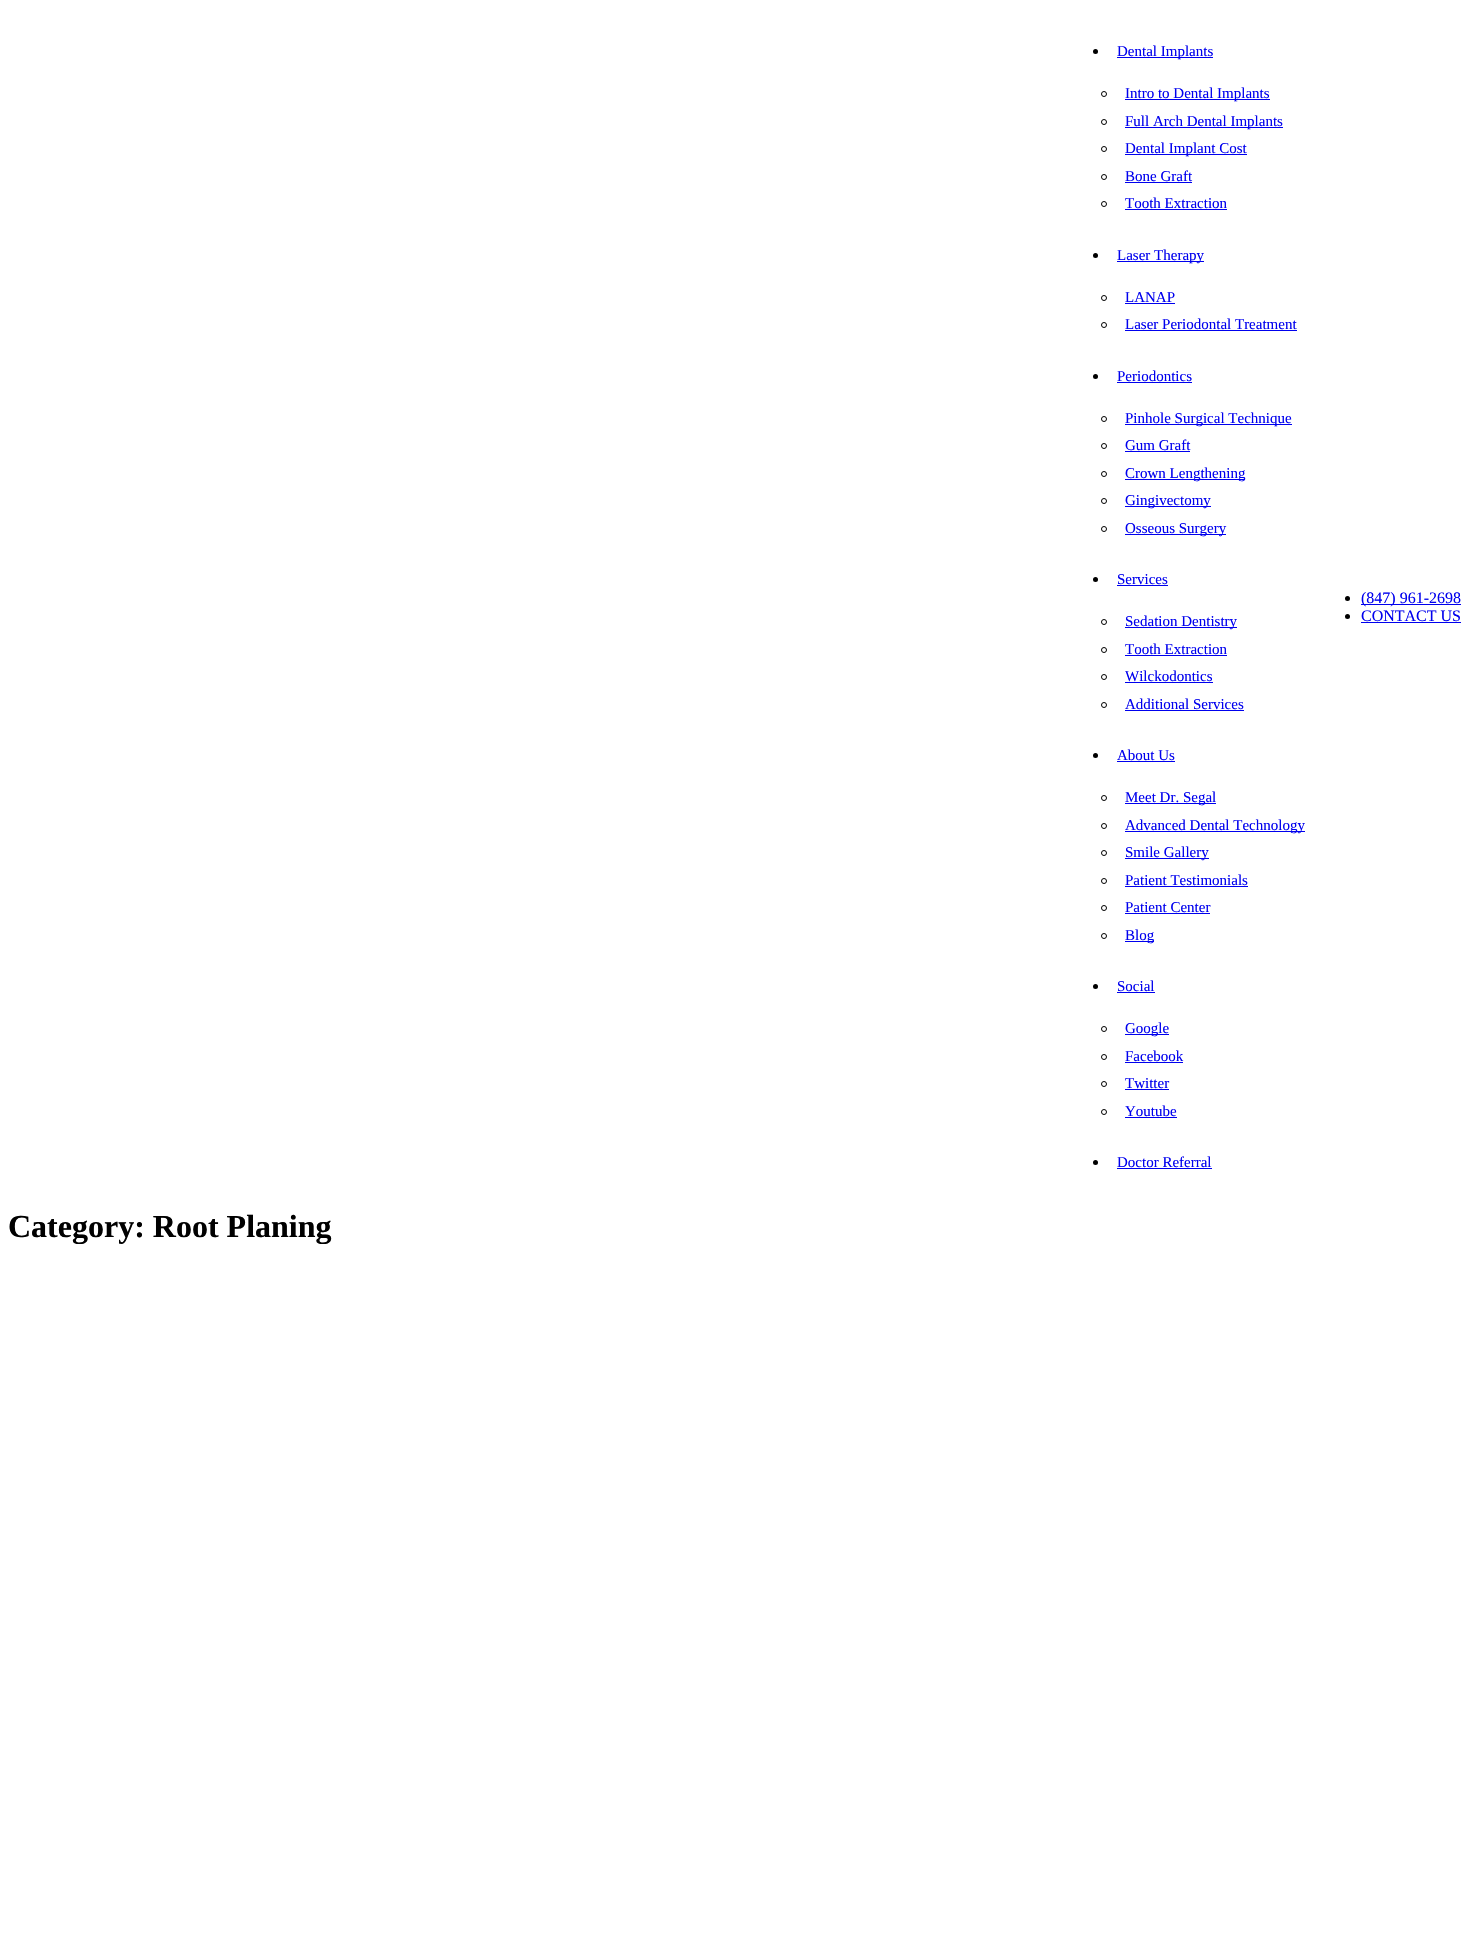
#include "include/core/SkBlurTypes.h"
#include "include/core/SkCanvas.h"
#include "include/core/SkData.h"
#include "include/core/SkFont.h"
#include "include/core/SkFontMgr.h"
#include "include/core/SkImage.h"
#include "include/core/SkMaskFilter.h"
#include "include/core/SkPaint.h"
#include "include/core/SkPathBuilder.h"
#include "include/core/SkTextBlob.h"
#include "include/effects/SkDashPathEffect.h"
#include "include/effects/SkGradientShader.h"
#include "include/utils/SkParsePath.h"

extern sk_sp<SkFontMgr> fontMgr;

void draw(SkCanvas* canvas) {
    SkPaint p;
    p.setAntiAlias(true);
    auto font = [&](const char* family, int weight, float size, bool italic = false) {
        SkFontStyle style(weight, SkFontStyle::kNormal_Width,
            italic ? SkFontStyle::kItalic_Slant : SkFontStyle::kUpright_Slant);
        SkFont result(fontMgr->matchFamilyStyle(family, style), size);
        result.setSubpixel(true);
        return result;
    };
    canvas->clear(0xFFFFFFFF);
    p.setColor(0xFF000000);
    canvas->drawCircle(1095.5f, 51.5f, 2.5f, p);
    p.setColor(0xFF0000EE);
    canvas->drawRect(SkRect::MakeLTRB(1117, 57, 1213, 58), p);
    auto font1 = font("Liberation Serif", 400, 15);
    canvas->drawString("Dental Implants", 1117, 56, font1, p);
    p.setStyle(SkPaint::kStroke_Style);
    p.setStrokeWidth(1);
    p.setColor(0xFF000000);
    canvas->drawCircle(1104, 94, 2.5f, p);
    p.setStyle(SkPaint::kFill_Style);
    p.setColor(0xFF0000EE);
    canvas->drawRect(SkRect::MakeLTRB(1125, 99, 1270, 100), p);
    canvas->drawString("Intro to Dental Implants", 1125, 98, font1, p);
    p.setStyle(SkPaint::kStroke_Style);
    p.setColor(0xFF000000);
    canvas->drawCircle(1104, 122, 2.5f, p);
    p.setStyle(SkPaint::kFill_Style);
    p.setColor(0xFF0000EE);
    canvas->drawRect(SkRect::MakeLTRB(1125, 127, 1283, 128), p);
    canvas->drawString("Full Arch Dental Implants", 1125, 126, font1, p);
    p.setStyle(SkPaint::kStroke_Style);
    p.setColor(0xFF000000);
    canvas->drawCircle(1104, 149, 2.5f, p);
    p.setStyle(SkPaint::kFill_Style);
    p.setColor(0xFF0000EE);
    canvas->drawRect(SkRect::MakeLTRB(1125, 154, 1247, 155), p);
    canvas->drawString("Dental Implant Cost", 1125, 153, font1, p);
    p.setStyle(SkPaint::kStroke_Style);
    p.setColor(0xFF000000);
    canvas->drawCircle(1104, 177, 2.5f, p);
    p.setStyle(SkPaint::kFill_Style);
    p.setColor(0xFF0000EE);
    canvas->drawString("Bone Graft", 1125, 181, font1, p);
    canvas->drawRect(SkRect::MakeLTRB(1125, 182, 1192, 183), p);
    p.setStyle(SkPaint::kStroke_Style);
    p.setColor(0xFF000000);
    canvas->drawCircle(1104, 204, 2.5f, p);
    p.setStyle(SkPaint::kFill_Style);
    p.setColor(0xFF0000EE);
    canvas->drawString("Tooth Extraction", 1125, 208, font1, p);
    canvas->drawRect(SkRect::MakeLTRB(1125, 209, 1227, 210), p);
    p.setColor(0xFF000000);
    canvas->drawCircle(1095.5f, 255.5f, 2.5f, p);
    p.setColor(0xFF0000EE);
    canvas->drawRect(SkRect::MakeLTRB(1117, 261, 1204, 262), p);
    canvas->drawString("Laser Therapy", 1117, 260, font1, p);
    p.setStyle(SkPaint::kStroke_Style);
    p.setColor(0xFF000000);
    canvas->drawCircle(1104, 298, 2.5f, p);
    p.setStyle(SkPaint::kFill_Style);
    p.setColor(0xFF0000EE);
    canvas->drawString("LANAP", 1125, 302, font1, p);
    canvas->drawRect(SkRect::MakeLTRB(1125, 303, 1175, 304), p);
    p.setStyle(SkPaint::kStroke_Style);
    p.setColor(0xFF000000);
    canvas->drawCircle(1104, 325, 2.5f, p);
    p.setStyle(SkPaint::kFill_Style);
    p.setColor(0xFF0000EE);
    canvas->drawString("Laser Periodontal Treatment", 1125, 329, font1, p);
    canvas->drawRect(SkRect::MakeLTRB(1125, 330, 1297, 331), p);
    p.setColor(0xFF000000);
    canvas->drawCircle(1095.5f, 376.5f, 2.5f, p);
    p.setColor(0xFF0000EE);
    canvas->drawString("Periodontics", 1117, 381, font1, p);
    canvas->drawRect(SkRect::MakeLTRB(1117, 382, 1192, 383), p);
    p.setStyle(SkPaint::kStroke_Style);
    p.setColor(0xFF000000);
    canvas->drawCircle(1104, 419, 2.5f, p);
    p.setStyle(SkPaint::kFill_Style);
    p.setColor(0xFF0000EE);
    canvas->drawRect(SkRect::MakeLTRB(1125, 424, 1292, 425), p);
    canvas->drawString("Pinhole Surgical Technique", 1125, 423, font1, p);
    p.setStyle(SkPaint::kStroke_Style);
    p.setColor(0xFF000000);
    canvas->drawCircle(1104, 446, 2.5f, p);
    p.setStyle(SkPaint::kFill_Style);
    p.setColor(0xFF0000EE);
    canvas->drawString("Gum Graft", 1125, 450, font1, p);
    canvas->drawRect(SkRect::MakeLTRB(1125, 451, 1190, 452), p);
    p.setStyle(SkPaint::kStroke_Style);
    p.setColor(0xFF000000);
    canvas->drawCircle(1104, 474, 2.5f, p);
    p.setStyle(SkPaint::kFill_Style);
    p.setColor(0xFF0000EE);
    canvas->drawRect(SkRect::MakeLTRB(1125, 479, 1245, 480), p);
    canvas->drawString("Crown Lengthening", 1125, 478, font1, p);
    p.setStyle(SkPaint::kStroke_Style);
    p.setColor(0xFF000000);
    canvas->drawCircle(1104, 501, 2.5f, p);
    p.setStyle(SkPaint::kFill_Style);
    p.setColor(0xFF0000EE);
    canvas->drawRect(SkRect::MakeLTRB(1125, 506, 1211, 507), p);
    canvas->drawString("Gingivectomy", 1125, 505, font1, p);
    p.setStyle(SkPaint::kStroke_Style);
    p.setColor(0xFF000000);
    canvas->drawCircle(1104, 529, 2.5f, p);
    p.setStyle(SkPaint::kFill_Style);
    p.setColor(0xFF0000EE);
    canvas->drawRect(SkRect::MakeLTRB(1125, 534, 1226, 535), p);
    canvas->drawString("Osseous Surgery", 1125, 533, font1, p);
    p.setColor(0xFF000000);
    canvas->drawCircle(1095.5f, 579.5f, 2.5f, p);
    p.setColor(0xFF0000EE);
    canvas->drawString("Services", 1117, 584, font1, p);
    canvas->drawRect(SkRect::MakeLTRB(1117, 585, 1168, 586), p);
    p.setStyle(SkPaint::kStroke_Style);
    p.setColor(0xFF000000);
    canvas->drawCircle(1104, 622, 2.5f, p);
    p.setStyle(SkPaint::kFill_Style);
    p.setColor(0xFF0000EE);
    canvas->drawRect(SkRect::MakeLTRB(1125, 627, 1237, 628), p);
    canvas->drawString("Sedation Dentistry", 1125, 626, font1, p);
    p.setStyle(SkPaint::kStroke_Style);
    p.setColor(0xFF000000);
    canvas->drawCircle(1104, 650, 2.5f, p);
    p.setStyle(SkPaint::kFill_Style);
    p.setColor(0xFF0000EE);
    canvas->drawString("Tooth Extraction", 1125, 654, font1, p);
    canvas->drawRect(SkRect::MakeLTRB(1125, 655, 1227, 656), p);
    p.setStyle(SkPaint::kStroke_Style);
    p.setColor(0xFF000000);
    canvas->drawCircle(1104, 677, 2.5f, p);
    p.setStyle(SkPaint::kFill_Style);
    p.setColor(0xFF0000EE);
    canvas->drawString("Wilckodontics", 1125, 681, font1, p);
    canvas->drawRect(SkRect::MakeLTRB(1125, 682, 1213, 683), p);
    p.setStyle(SkPaint::kStroke_Style);
    p.setColor(0xFF000000);
    canvas->drawCircle(1104, 705, 2.5f, p);
    p.setStyle(SkPaint::kFill_Style);
    p.setColor(0xFF0000EE);
    canvas->drawString("Additional Services", 1125, 709, font1, p);
    canvas->drawRect(SkRect::MakeLTRB(1125, 710, 1244, 711), p);
    p.setColor(0xFF000000);
    canvas->drawCircle(1095.5f, 755.5f, 2.5f, p);
    p.setColor(0xFF0000EE);
    canvas->drawString("About Us", 1117, 760, font1, p);
    canvas->drawRect(SkRect::MakeLTRB(1117, 761, 1175, 762), p);
    p.setStyle(SkPaint::kStroke_Style);
    p.setColor(0xFF000000);
    canvas->drawCircle(1104, 798, 2.5f, p);
    p.setStyle(SkPaint::kFill_Style);
    p.setColor(0xFF0000EE);
    canvas->drawRect(SkRect::MakeLTRB(1125, 803, 1216, 804), p);
    canvas->drawString("Meet Dr. Segal", 1125, 802, font1, p);
    p.setStyle(SkPaint::kStroke_Style);
    p.setColor(0xFF000000);
    canvas->drawCircle(1104, 826, 2.5f, p);
    p.setStyle(SkPaint::kFill_Style);
    p.setColor(0xFF0000EE);
    canvas->drawRect(SkRect::MakeLTRB(1125, 831, 1305, 832), p);
    canvas->drawString("Advanced Dental Technology", 1125, 830, font1, p);
    p.setStyle(SkPaint::kStroke_Style);
    p.setColor(0xFF000000);
    canvas->drawCircle(1104, 853, 2.5f, p);
    p.setStyle(SkPaint::kFill_Style);
    p.setColor(0xFF0000EE);
    canvas->drawRect(SkRect::MakeLTRB(1125, 858, 1209, 859), p);
    canvas->drawString("Smile Gallery", 1125, 857, font1, p);
    p.setStyle(SkPaint::kStroke_Style);
    p.setColor(0xFF000000);
    canvas->drawCircle(1104, 881, 2.5f, p);
    p.setStyle(SkPaint::kFill_Style);
    p.setColor(0xFF0000EE);
    canvas->drawString("Patient Testimonials", 1125, 885, font1, p);
    canvas->drawRect(SkRect::MakeLTRB(1125, 886, 1248, 887), p);
    p.setStyle(SkPaint::kStroke_Style);
    p.setColor(0xFF000000);
    canvas->drawCircle(1104, 908, 2.5f, p);
    p.setStyle(SkPaint::kFill_Style);
    p.setColor(0xFF0000EE);
    canvas->drawString("Patient Center", 1125, 912, font1, p);
    canvas->drawRect(SkRect::MakeLTRB(1125, 913, 1210, 914), p);
    p.setStyle(SkPaint::kStroke_Style);
    p.setColor(0xFF000000);
    canvas->drawCircle(1104, 936, 2.5f, p);
    p.setStyle(SkPaint::kFill_Style);
    p.setColor(0xFF0000EE);
    canvas->drawRect(SkRect::MakeLTRB(1125, 941, 1154, 942), p);
    canvas->drawString("Blog", 1125, 940, font1, p);
    p.setColor(0xFF000000);
    canvas->drawCircle(1095.5f, 986.5f, 2.5f, p);
    p.setColor(0xFF0000EE);
    canvas->drawString("Social", 1117, 991, font1, p);
    canvas->drawRect(SkRect::MakeLTRB(1117, 992, 1155, 993), p);
    p.setStyle(SkPaint::kStroke_Style);
    p.setColor(0xFF000000);
    canvas->drawCircle(1104, 1029, 2.5f, p);
    p.setStyle(SkPaint::kFill_Style);
    p.setColor(0xFF0000EE);
    canvas->drawRect(SkRect::MakeLTRB(1125, 1034, 1169, 1035), p);
    canvas->drawString("Google", 1125, 1033, font1, p);
    p.setStyle(SkPaint::kStroke_Style);
    p.setColor(0xFF000000);
    canvas->drawCircle(1104, 1057, 2.5f, p);
    p.setStyle(SkPaint::kFill_Style);
    p.setColor(0xFF0000EE);
    canvas->drawString("Facebook", 1125, 1061, font1, p);
    canvas->drawRect(SkRect::MakeLTRB(1125, 1062, 1183, 1063), p);
    p.setStyle(SkPaint::kStroke_Style);
    p.setColor(0xFF000000);
    canvas->drawCircle(1104, 1084, 2.5f, p);
    p.setStyle(SkPaint::kFill_Style);
    p.setColor(0xFF0000EE);
    canvas->drawString("Twitter", 1125, 1088, font1, p);
    canvas->drawRect(SkRect::MakeLTRB(1125, 1089, 1169, 1090), p);
    p.setStyle(SkPaint::kStroke_Style);
    p.setColor(0xFF000000);
    canvas->drawCircle(1104, 1112, 2.5f, p);
    p.setStyle(SkPaint::kFill_Style);
    p.setColor(0xFF0000EE);
    canvas->drawString("Youtube", 1125, 1116, font1, p);
    canvas->drawRect(SkRect::MakeLTRB(1125, 1117, 1177, 1118), p);
    p.setColor(0xFF000000);
    canvas->drawCircle(1095.5f, 1162.5f, 2.5f, p);
    p.setColor(0xFF0000EE);
    canvas->drawString("Doctor Referral", 1117, 1167, font1, p);
    canvas->drawRect(SkRect::MakeLTRB(1117, 1168, 1212, 1169), p);
    p.setColor(0xFF000000);
    canvas->drawCircle(1347.5f, 598.5f, 2.5f, p);
    p.setColor(0xFF0000EE);
    canvas->drawRect(SkRect::MakeLTRB(1361, 604, 1461, 605), p);
    auto font2 = font("Liberation Serif", 400, 16);
    canvas->drawString("(847) 961-2698", 1361, 603, font2, p);
    p.setColor(0xFF000000);
    canvas->drawCircle(1347.5f, 616.5f, 2.5f, p);
    p.setColor(0xFF0000EE);
    canvas->drawString("CONTACT US", 1361, 621, font2, p);
    canvas->drawRect(SkRect::MakeLTRB(1361, 622, 1461, 623), p);
    auto font3 = font("Liberation Serif", 700, 32);
    p.setColor(0xFF000000);
    canvas->drawString("Category: Root Planing", 8, 1237, font3, p);
}
